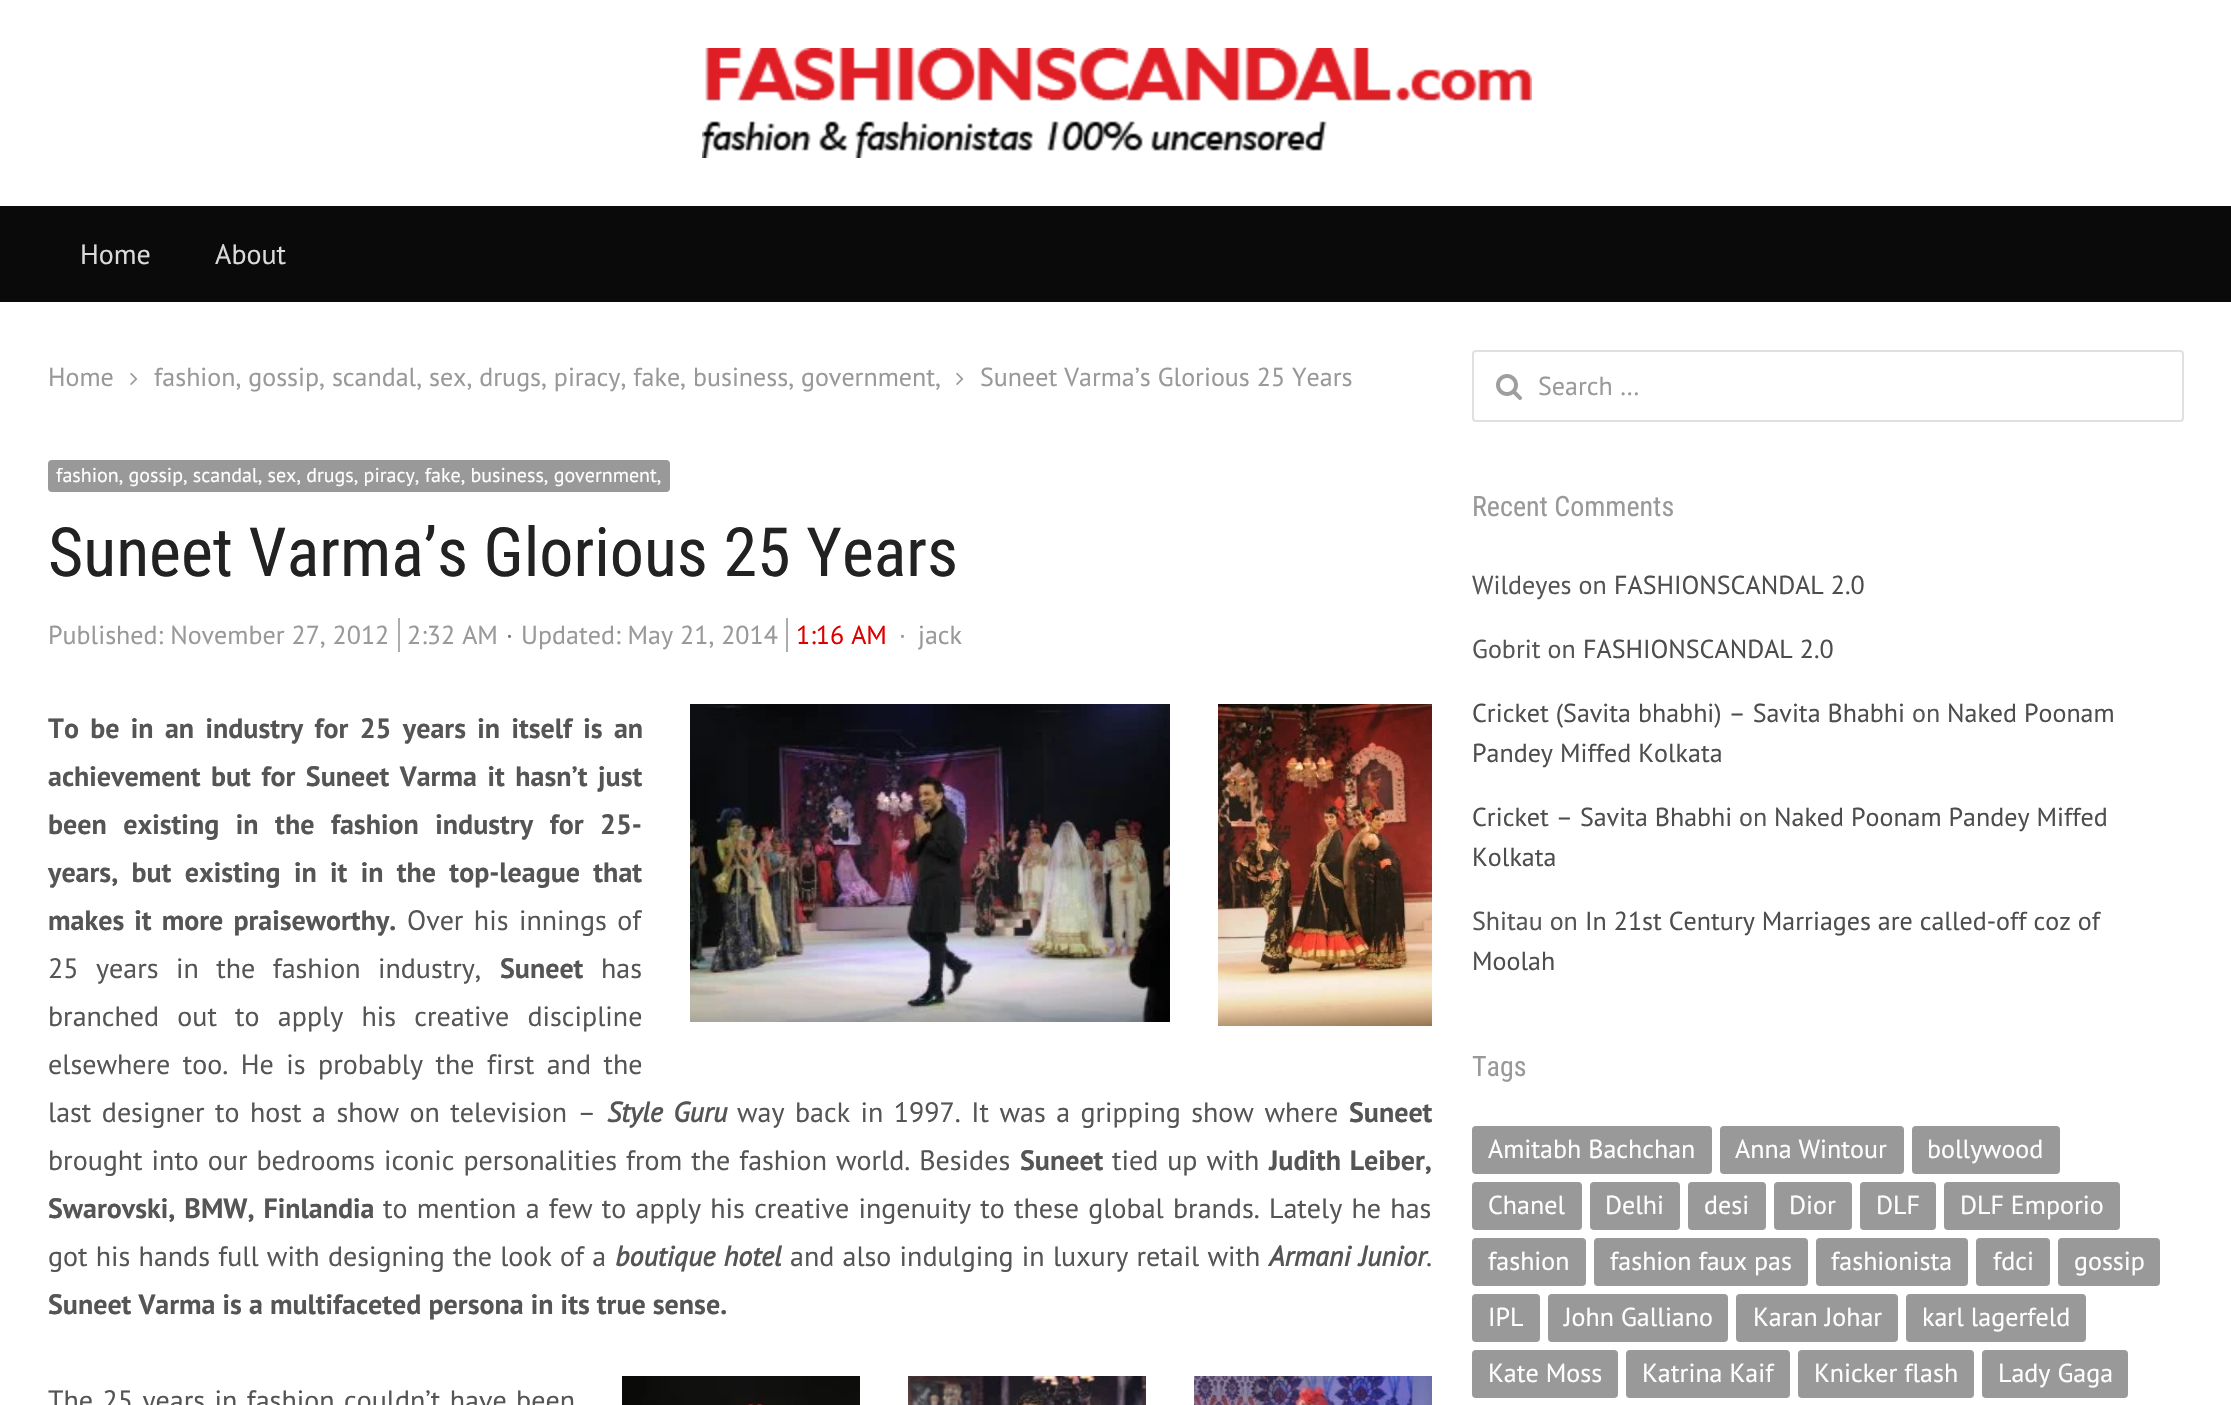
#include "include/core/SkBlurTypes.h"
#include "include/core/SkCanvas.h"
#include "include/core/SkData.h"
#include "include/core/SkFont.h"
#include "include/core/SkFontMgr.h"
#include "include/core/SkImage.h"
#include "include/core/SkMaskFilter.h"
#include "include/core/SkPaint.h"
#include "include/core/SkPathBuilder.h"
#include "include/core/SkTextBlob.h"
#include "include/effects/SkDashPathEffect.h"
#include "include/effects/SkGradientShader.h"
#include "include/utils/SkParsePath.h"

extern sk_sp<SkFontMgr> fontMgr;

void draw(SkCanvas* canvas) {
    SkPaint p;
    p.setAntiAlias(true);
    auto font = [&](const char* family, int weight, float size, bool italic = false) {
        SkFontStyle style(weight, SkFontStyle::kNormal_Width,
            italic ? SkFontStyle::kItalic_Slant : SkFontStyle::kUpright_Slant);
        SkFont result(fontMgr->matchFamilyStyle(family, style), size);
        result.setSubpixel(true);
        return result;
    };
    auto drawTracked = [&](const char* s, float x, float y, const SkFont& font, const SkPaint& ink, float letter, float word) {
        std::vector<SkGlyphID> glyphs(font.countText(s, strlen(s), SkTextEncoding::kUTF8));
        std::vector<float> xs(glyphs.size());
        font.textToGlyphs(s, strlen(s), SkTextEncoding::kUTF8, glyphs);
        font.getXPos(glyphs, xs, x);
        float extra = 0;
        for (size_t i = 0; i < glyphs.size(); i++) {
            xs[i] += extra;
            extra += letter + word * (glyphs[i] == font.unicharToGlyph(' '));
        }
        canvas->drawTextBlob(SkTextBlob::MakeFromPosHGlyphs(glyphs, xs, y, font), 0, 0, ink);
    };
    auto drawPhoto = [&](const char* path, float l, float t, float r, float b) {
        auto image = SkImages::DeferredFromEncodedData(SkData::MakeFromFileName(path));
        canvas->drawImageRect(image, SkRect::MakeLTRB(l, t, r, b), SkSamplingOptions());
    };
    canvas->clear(0xFFFFFFFF);
    drawPhoto("media/1.png", 702, 48, 1532, 158);
    p.setColor(0xFF0A0A0A);
    canvas->drawRect(SkRect::MakeLTRB(0, 206, 2231, 302), p);
    auto font1 = font("PT Sans", 400, 28);
    p.setColor(0xFFDADADA);
    canvas->drawString("Home", 80, 264, font1, p);
    canvas->drawString("About", 215, 264, font1, p);
    auto font2 = font("PT Sans", 400, 26);
    p.setColor(0xFF999999);
    canvas->drawString("Home", 48, 386, font2, p);
    drawPhoto("media/2.png", 130, 372, 138, 385);
    canvas->drawString("fashion, gossip, scandal, sex, drugs, piracy, fake, business, government,", 154, 386, font2, p);
    drawPhoto("media/2.png", 956, 372, 964, 385);
    canvas->drawString("Suneet Varma’s Glorious 25 Years", 980, 386, font2, p);
    canvas->drawRoundRect(SkRect::MakeLTRB(48, 460, 670, 492), 4, 4, p);
    auto font3 = font("PT Sans", 400, 20);
    p.setColor(0xFFFFFFFF);
    canvas->drawString("fashion, gossip, scandal, sex, drugs, piracy, fake, business, government,", 56, 482, font3, p);
    auto font4 = font("Roboto Condensed", 400, 68);
    p.setColor(0xFF222222);
    canvas->drawString("Suneet Varma’s Glorious 25 Years", 48, 576, font4, p);
    p.setColor(0xFF999999);
    canvas->drawString("Published: November 27, 2012", 48, 644, font2, p);
    canvas->drawString("2:32 AM", 407, 644, font2, p);
    p.setColor(0xFFACACAC);
    canvas->drawRect(SkRect::MakeLTRB(398, 618, 400, 652), p);
    p.setColor(0xFF757575);
    canvas->drawString("·", 506, 644, font2, p);
    p.setColor(0xFF999999);
    canvas->drawString("Updated: May 21, 2014", 521, 644, font2, p);
    p.setColor(0xFFDD0000);
    canvas->drawString("1:16 AM", 796, 644, font2, p);
    p.setColor(0xFFACACAC);
    canvas->drawRect(SkRect::MakeLTRB(786, 618, 788, 652), p);
    p.setColor(0xFF999999);
    canvas->drawString("·", 899, 644, font2, p);
    canvas->drawString("jack", 918, 644, font2, p);
    auto font5 = font("PT Sans", 700, 28);
    p.setColor(0xFF555555);
    drawTracked("To be in an industry for 25 years in itself is an", 48, 738, font5, p, 0, 4.25f);
    drawPhoto("media/3.png", 690, 704, 1170, 1022);
    drawPhoto("media/4.png", 1218, 704, 1432, 1026);
    drawTracked("achievement but for Suneet Varma it hasn’t just", 48, 786, font5, p, 0, 3.5f);
    drawTracked("been existing in the fashion industry for 25-", 48, 834, font5, p, 0, 9.5f);
    drawTracked("years, but existing in it in the top-league that", 48, 882, font5, p, 0, 6.25f);
    drawTracked("makes it more praiseworthy.", 48, 930, font5, p, 0, 3);
    drawTracked("Over his innings of", 407, 930, font1, p, 0, 3);
    drawTracked("25 years in the fashion industry,", 48, 978, font1, p, 0, 10);
    canvas->drawString("Suneet", 500, 978, font5, p);
    canvas->drawString("has", 601, 978, font1, p);
    drawTracked("branched out to apply his creative discipline", 48, 1026, font1, p, 0, 10.75f);
    drawTracked("elsewhere too. He is probably the first and the", 48, 1074, font1, p, 0, 5);
    drawTracked("last designer to host a show on television –", 48, 1122, font1, p, 0, 3);
    auto font6 = font("PT Sans", 700, 28, true);
    drawTracked("Style Guru", 607, 1122, font6, p, 0, 3);
    drawTracked("way back in 1997. It was a gripping show where", 737, 1122, font1, p, 0, 3);
    canvas->drawString("Suneet", 1349, 1122, font5, p);
    drawTracked("brought into our bedrooms iconic personalities from the fashion world. Besides", 48, 1170, font1, p, 0, 1.5f);
    canvas->drawString("Suneet", 1020, 1170, font5, p);
    drawTracked("tied up with", 1112, 1170, font1, p, 0, 1.5f);
    drawTracked("Judith Leiber,", 1269, 1170, font5, p, 0, 1.5f);
    drawTracked("Swarovski, BMW, Finlandia", 48, 1218, font5, p, 0, 2);
    drawTracked("to mention a few to apply his creative ingenuity to these global brands. Lately he has", 383, 1218, font1, p, 0, 1.8f);
    drawTracked("got his hands full with designing the look of a", 48, 1266, font1, p, 0, 0.75f);
    drawTracked("boutique hotel", 615, 1266, font6, p, 0, 0.75f);
    drawTracked("and also indulging in luxury retail with", 790, 1266, font1, p, 0, 0.75f);
    drawTracked("Armani Junior", 1269, 1266, font6, p, 0, 1);
    canvas->drawString(".", 1426, 1266, font1, p);
    canvas->drawString("Suneet Varma is a multifaceted persona in its true sense.", 48, 1314, font5, p);
    drawTracked("The 25 years in fashion couldn’t have been", 48, 1410, font1, p, 0, 2);
    drawPhoto("media/5.png", 622, 1376, 860, 1405);
    drawPhoto("media/6.png", 908, 1376, 1146, 1405);
    drawPhoto("media/7.png", 1194, 1376, 1432, 1405);
    p.setStyle(SkPaint::kStroke_Style);
    p.setStrokeWidth(2);
    p.setColor(0xFFE0E0E0);
    canvas->drawRoundRect(SkRect::MakeLTRB(1473, 351, 2183, 421), 3, 3, p);
    drawPhoto("media/8.png", 1496, 374, 1522, 400);
    p.setStyle(SkPaint::kFill_Style);
    p.setColor(0xFF999999);
    canvas->drawString("Search …", 1538, 395, font2, p);
    auto font7 = font("Roboto Condensed", 400, 28);
    canvas->drawString("Recent Comments", 1472, 516, font7, p);
    p.setColor(0xFF555555);
    canvas->drawString("Wildeyes on", 1472, 594, font2, p);
    p.setColor(0xFF4D4D4D);
    canvas->drawString("FASHIONSCANDAL 2.0", 1614, 594, font2, p);
    p.setColor(0xFF555555);
    canvas->drawString("Gobrit on", 1472, 658, font2, p);
    p.setColor(0xFF4D4D4D);
    canvas->drawString("FASHIONSCANDAL 2.0", 1583, 658, font2, p);
    canvas->drawString("Cricket (Savita bhabhi) – Savita Bhabhi", 1472, 722, font2, p);
    p.setColor(0xFF555555);
    canvas->drawString("on", 1912, 722, font2, p);
    p.setColor(0xFF4D4D4D);
    {
        const struct { const char* s; float x, y; } items[] = {
            {"Naked Poonam", 1947, 722},
            {"Pandey Miffed Kolkata", 1472, 762},
            {"Cricket – Savita Bhabhi", 1472, 826},
        };
        for (auto [s, x, y] : items) {
            canvas->drawString(s, x, y, font2, p);
        }
    }
    p.setColor(0xFF555555);
    canvas->drawString("on", 1739, 826, font2, p);
    p.setColor(0xFF4D4D4D);
    canvas->drawString("Naked Poonam Pandey Miffed", 1774, 826, font2, p);
    canvas->drawString("Kolkata", 1472, 866, font2, p);
    p.setColor(0xFF555555);
    canvas->drawString("Shitau on", 1472, 930, font2, p);
    p.setColor(0xFF4D4D4D);
    canvas->drawString("In 21st Century Marriages are called-off coz of", 1585, 930, font2, p);
    canvas->drawString("Moolah", 1472, 970, font2, p);
    p.setColor(0xFF999999);
    canvas->drawString("Tags", 1472, 1076, font7, p);
    canvas->drawRoundRect(SkRect::MakeLTRB(1472, 1126, 1712, 1174), 4, 4, p);
    p.setColor(0xFFFFFFFF);
    canvas->drawString("Amitabh Bachchan", 1488, 1158, font2, p);
    p.setColor(0xFF999999);
    canvas->drawRoundRect(SkRect::MakeLTRB(1720, 1126, 1904, 1174), 4, 4, p);
    p.setColor(0xFFFFFFFF);
    canvas->drawString("Anna Wintour", 1735, 1158, font2, p);
    p.setColor(0xFF999999);
    canvas->drawRoundRect(SkRect::MakeLTRB(1912, 1126, 2060, 1174), 4, 4, p);
    p.setColor(0xFFFFFFFF);
    canvas->drawString("bollywood", 1927, 1158, font2, p);
    p.setColor(0xFF999999);
    canvas->drawRoundRect(SkRect::MakeLTRB(1472, 1182, 1582, 1230), 4, 4, p);
    p.setColor(0xFFFFFFFF);
    canvas->drawString("Chanel", 1488, 1214, font2, p);
    p.setColor(0xFF999999);
    canvas->drawRoundRect(SkRect::MakeLTRB(1590, 1182, 1680, 1230), 4, 4, p);
    p.setColor(0xFFFFFFFF);
    canvas->drawString("Delhi", 1605, 1214, font2, p);
    p.setColor(0xFF999999);
    canvas->drawRoundRect(SkRect::MakeLTRB(1688, 1182, 1766, 1230), 4, 4, p);
    p.setColor(0xFFFFFFFF);
    canvas->drawString("desi", 1704, 1214, font2, p);
    p.setColor(0xFF999999);
    canvas->drawRoundRect(SkRect::MakeLTRB(1774, 1182, 1852, 1230), 4, 4, p);
    p.setColor(0xFFFFFFFF);
    canvas->drawString("Dior", 1789, 1214, font2, p);
    p.setColor(0xFF999999);
    canvas->drawRoundRect(SkRect::MakeLTRB(1860, 1182, 1936, 1230), 4, 4, p);
    p.setColor(0xFFFFFFFF);
    canvas->drawString("DLF", 1876, 1214, font2, p);
    p.setColor(0xFF999999);
    canvas->drawRoundRect(SkRect::MakeLTRB(1944, 1182, 2120, 1230), 4, 4, p);
    p.setColor(0xFFFFFFFF);
    canvas->drawString("DLF Emporio", 1960, 1214, font2, p);
    p.setColor(0xFF999999);
    canvas->drawRoundRect(SkRect::MakeLTRB(1472, 1238, 1586, 1286), 4, 4, p);
    p.setColor(0xFFFFFFFF);
    canvas->drawString("fashion", 1488, 1270, font2, p);
    p.setColor(0xFF999999);
    canvas->drawRoundRect(SkRect::MakeLTRB(1594, 1238, 1808, 1286), 4, 4, p);
    p.setColor(0xFFFFFFFF);
    canvas->drawString("fashion faux pas", 1610, 1270, font2, p);
    p.setColor(0xFF999999);
    canvas->drawRoundRect(SkRect::MakeLTRB(1816, 1238, 1968, 1286), 4, 4, p);
    p.setColor(0xFFFFFFFF);
    canvas->drawString("fashionista", 1831, 1270, font2, p);
    p.setColor(0xFF999999);
    canvas->drawRoundRect(SkRect::MakeLTRB(1976, 1238, 2050, 1286), 4, 4, p);
    p.setColor(0xFFFFFFFF);
    canvas->drawString("fdci", 1993, 1270, font2, p);
    p.setColor(0xFF999999);
    canvas->drawRoundRect(SkRect::MakeLTRB(2058, 1238, 2160, 1286), 4, 4, p);
    p.setColor(0xFFFFFFFF);
    canvas->drawString("gossip", 2074, 1270, font2, p);
    p.setColor(0xFF999999);
    canvas->drawRoundRect(SkRect::MakeLTRB(1472, 1294, 1540, 1342), 4, 4, p);
    p.setColor(0xFFFFFFFF);
    canvas->drawString("IPL", 1488, 1326, font2, p);
    p.setColor(0xFF999999);
    canvas->drawRoundRect(SkRect::MakeLTRB(1548, 1294, 1728, 1342), 4, 4, p);
    p.setColor(0xFFFFFFFF);
    canvas->drawString("John Galliano", 1564, 1326, font2, p);
    p.setColor(0xFF999999);
    canvas->drawRoundRect(SkRect::MakeLTRB(1736, 1294, 1898, 1342), 4, 4, p);
    p.setColor(0xFFFFFFFF);
    canvas->drawString("Karan Johar", 1753, 1326, font2, p);
    p.setColor(0xFF999999);
    canvas->drawRoundRect(SkRect::MakeLTRB(1906, 1294, 2086, 1342), 4, 4, p);
    p.setColor(0xFFFFFFFF);
    canvas->drawString("karl lagerfeld", 1922, 1326, font2, p);
    p.setColor(0xFF999999);
    canvas->drawRoundRect(SkRect::MakeLTRB(1472, 1350, 1618, 1398), 4, 4, p);
    p.setColor(0xFFFFFFFF);
    canvas->drawString("Kate Moss", 1488, 1382, font2, p);
    p.setColor(0xFF999999);
    canvas->drawRoundRect(SkRect::MakeLTRB(1626, 1350, 1790, 1398), 4, 4, p);
    p.setColor(0xFFFFFFFF);
    canvas->drawString("Katrina Kaif", 1642, 1382, font2, p);
    p.setColor(0xFF999999);
    canvas->drawRoundRect(SkRect::MakeLTRB(1798, 1350, 1974, 1398), 4, 4, p);
    p.setColor(0xFFFFFFFF);
    canvas->drawString("Knicker flash", 1814, 1382, font2, p);
    p.setColor(0xFF999999);
    canvas->drawRoundRect(SkRect::MakeLTRB(1982, 1350, 2128, 1398), 4, 4, p);
    p.setColor(0xFFFFFFFF);
    canvas->drawString("Lady Gaga", 1998, 1382, font2, p);
}
